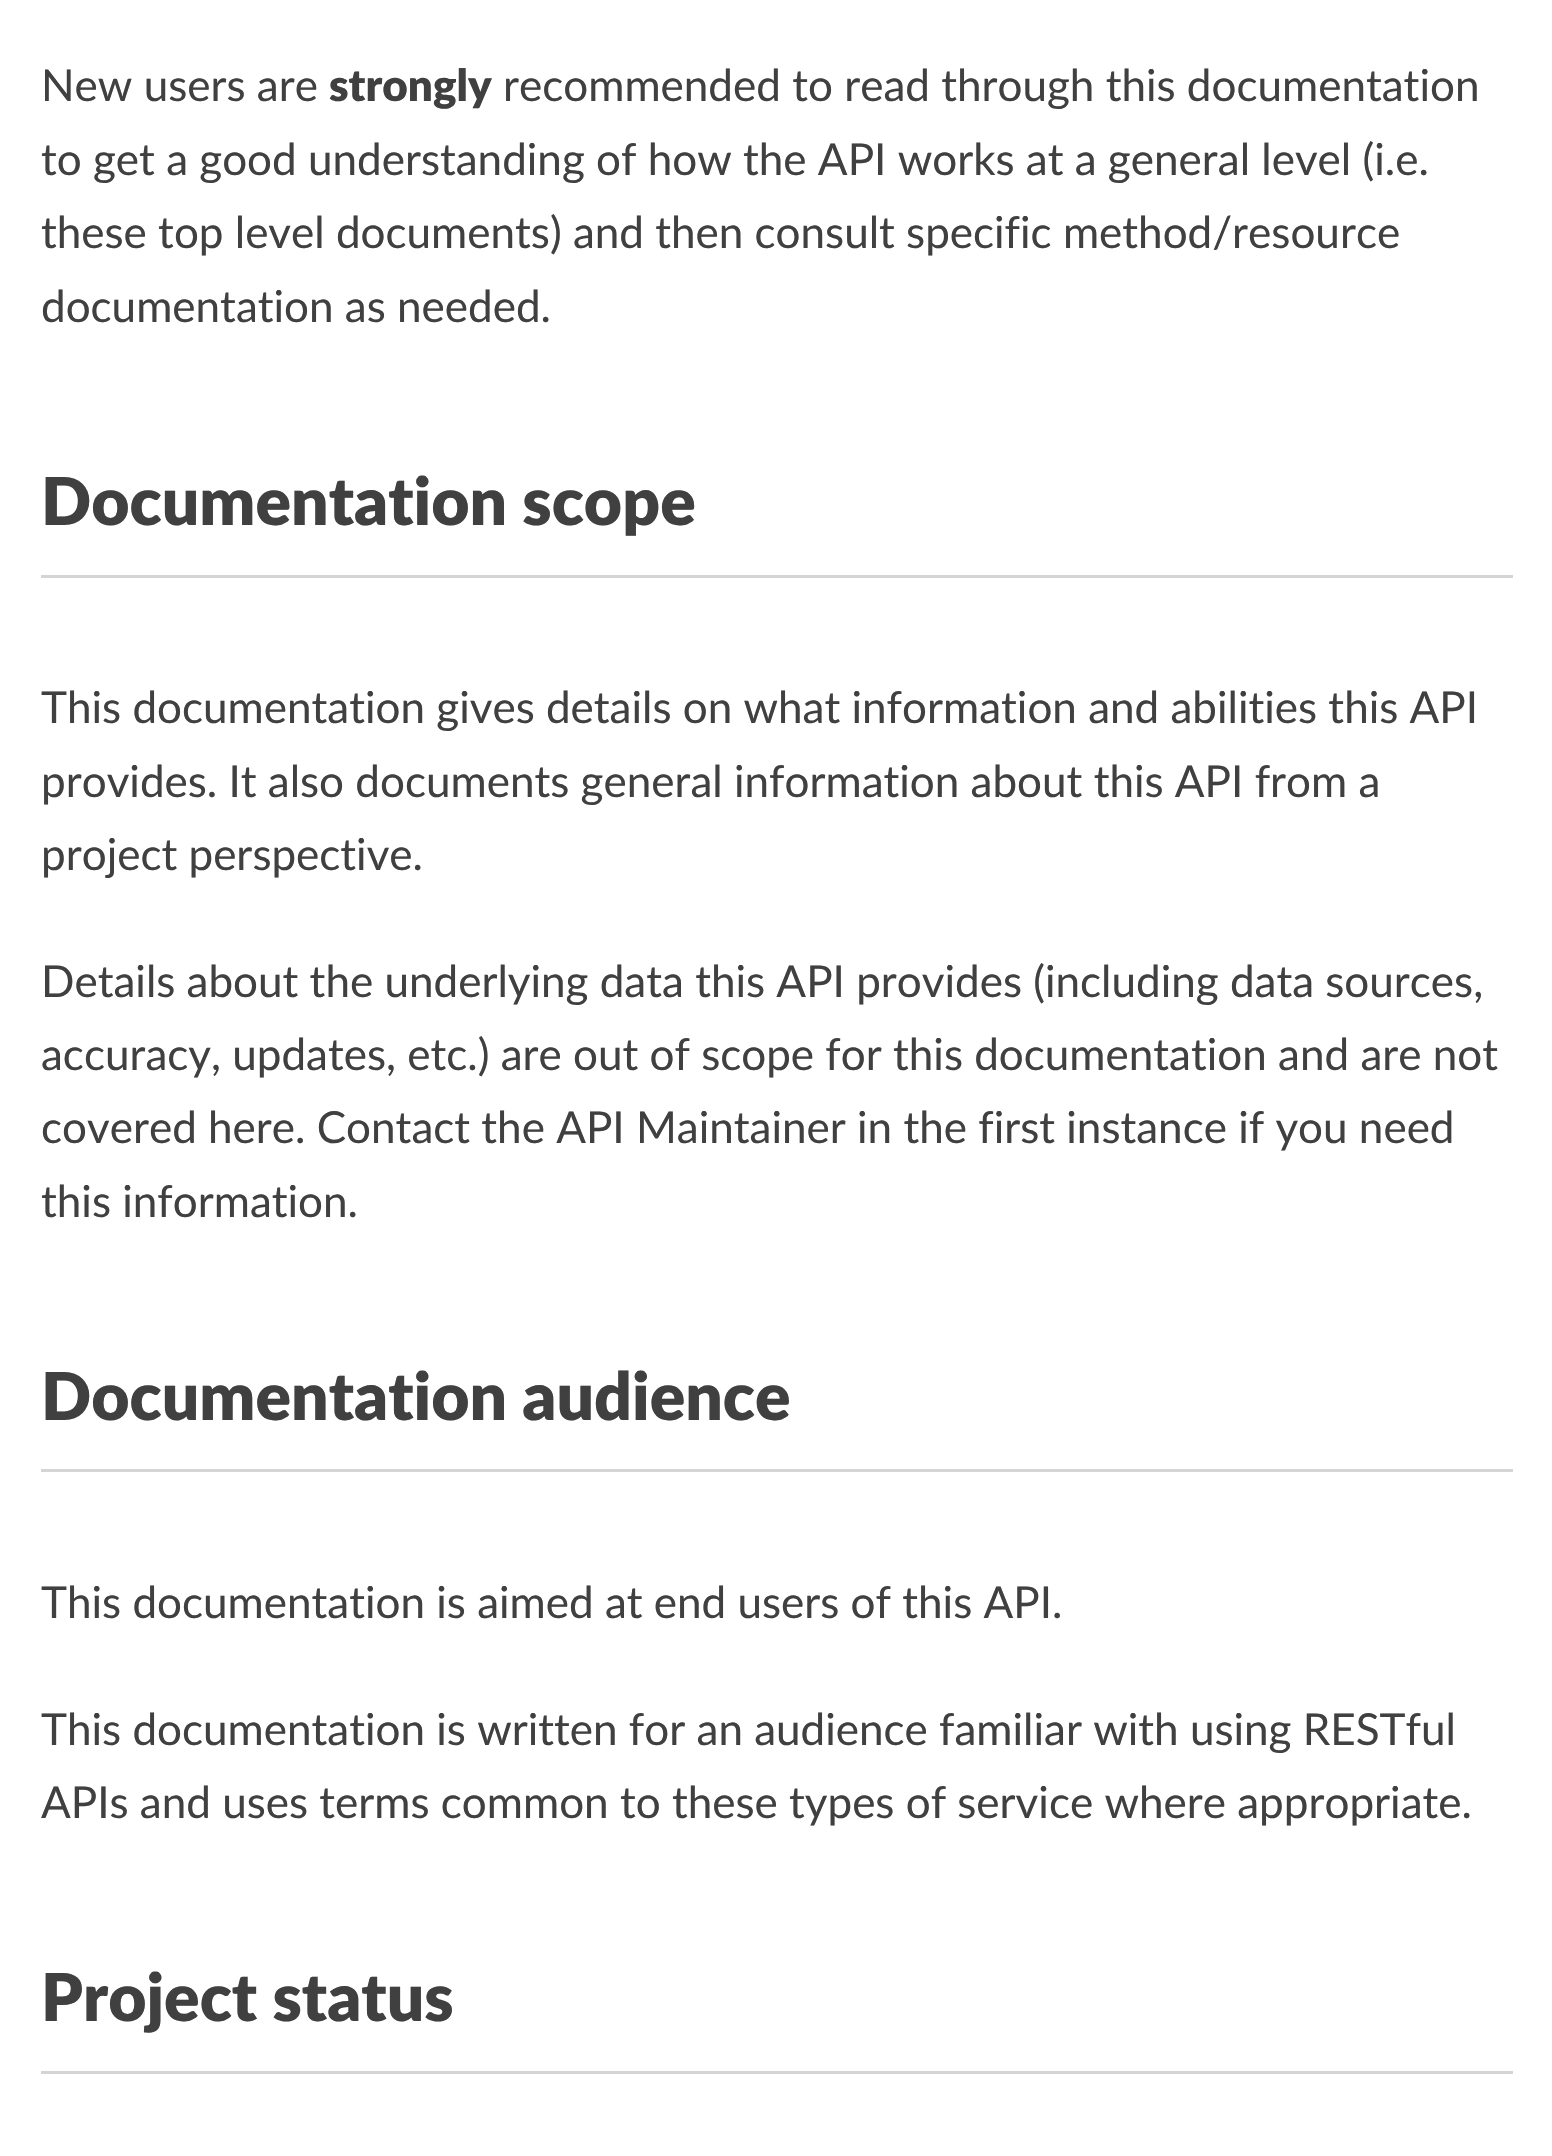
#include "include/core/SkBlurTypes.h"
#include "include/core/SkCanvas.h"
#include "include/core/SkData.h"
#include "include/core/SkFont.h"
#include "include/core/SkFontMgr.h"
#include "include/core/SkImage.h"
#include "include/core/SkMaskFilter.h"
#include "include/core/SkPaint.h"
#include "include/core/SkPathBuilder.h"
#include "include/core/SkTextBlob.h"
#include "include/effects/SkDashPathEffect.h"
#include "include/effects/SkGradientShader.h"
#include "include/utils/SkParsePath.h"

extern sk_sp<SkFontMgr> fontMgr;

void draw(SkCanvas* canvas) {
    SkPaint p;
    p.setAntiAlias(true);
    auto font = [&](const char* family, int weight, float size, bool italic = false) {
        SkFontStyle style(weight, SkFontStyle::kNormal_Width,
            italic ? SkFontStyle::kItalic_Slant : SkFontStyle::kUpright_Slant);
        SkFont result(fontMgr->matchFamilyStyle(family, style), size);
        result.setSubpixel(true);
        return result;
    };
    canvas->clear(0xFFFFFFFF);
    auto font1 = font("Lato", 400, 44);
    p.setColor(0xFF404040);
    canvas->drawString("New users are", 41, 101, font1, p);
    auto font2 = font("Lato", 900, 44);
    canvas->drawString("strongly", 329, 101, font2, p);
    {
        const struct { const char* s; float x, y; } items[] = {
            {"recommended to read through this documentation", 503, 101},
            {"to get a good understanding of how the API works at a general level (i.e.", 41, 175},
            {"these top level documents) and then consult specific method/resource", 41, 248},
            {"documentation as needed.", 41, 322},
        };
        for (auto [s, x, y] : items) {
            canvas->drawString(s, x, y, font1, p);
        }
    }
    auto font3 = font("Lato", 900, 66);
    canvas->drawString("Documentation scope", 41, 525, font3, p);
    p.setColor(0xFFD5D5D5);
    canvas->drawRect(SkRect::MakeLTRB(41, 575, 1513, 578), p);
    p.setColor(0xFF404040);
    {
        const struct { const char* s; float x, y; } items[] = {
            {"This documentation gives details on what information and abilities this API", 41, 723},
            {"provides. It also documents general information about this API from a", 41, 797},
            {"project perspective.", 41, 870},
            {"Details about the underlying data this API provides (including data sources,", 41, 997},
            {"accuracy, updates, etc.) are out of scope for this documentation and are not", 41, 1070},
            {"covered here. Contact the API Maintainer in the first instance if you need", 41, 1143},
            {"this information.", 41, 1217},
        };
        for (auto [s, x, y] : items) {
            canvas->drawString(s, x, y, font1, p);
        }
    }
    canvas->drawString("Documentation audience", 41, 1420, font3, p);
    p.setColor(0xFFD5D5D5);
    canvas->drawRect(SkRect::MakeLTRB(41, 1469, 1513, 1472), p);
    p.setColor(0xFF404040);
    {
        const struct { const char* s; float x, y; } items[] = {
            {"This documentation is aimed at end users of this API.", 41, 1618},
            {"This documentation is written for an audience familiar with using RESTful", 41, 1745},
            {"APIs and uses terms common to these types of service where appropriate.", 41, 1818},
        };
        for (auto [s, x, y] : items) {
            canvas->drawString(s, x, y, font1, p);
        }
    }
    canvas->drawString("Project status", 41, 2021, font3, p);
    p.setColor(0xFFD5D5D5);
    canvas->drawRect(SkRect::MakeLTRB(41, 2071, 1513, 2074), p);
}
